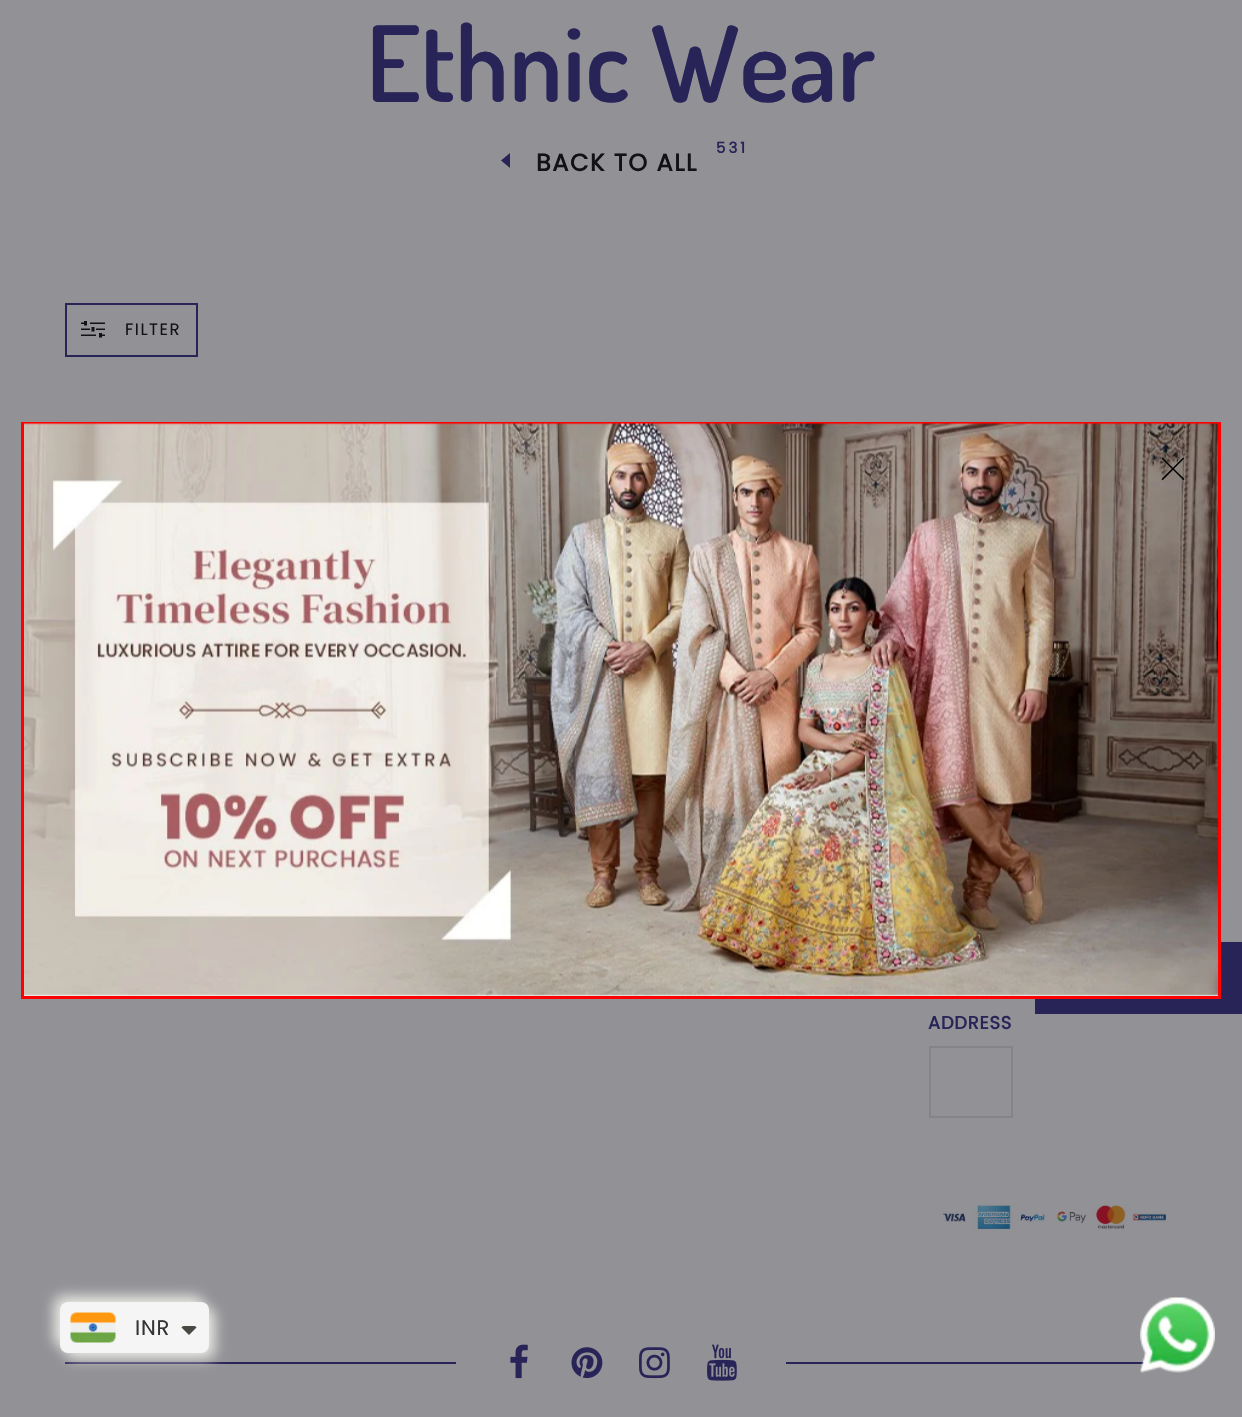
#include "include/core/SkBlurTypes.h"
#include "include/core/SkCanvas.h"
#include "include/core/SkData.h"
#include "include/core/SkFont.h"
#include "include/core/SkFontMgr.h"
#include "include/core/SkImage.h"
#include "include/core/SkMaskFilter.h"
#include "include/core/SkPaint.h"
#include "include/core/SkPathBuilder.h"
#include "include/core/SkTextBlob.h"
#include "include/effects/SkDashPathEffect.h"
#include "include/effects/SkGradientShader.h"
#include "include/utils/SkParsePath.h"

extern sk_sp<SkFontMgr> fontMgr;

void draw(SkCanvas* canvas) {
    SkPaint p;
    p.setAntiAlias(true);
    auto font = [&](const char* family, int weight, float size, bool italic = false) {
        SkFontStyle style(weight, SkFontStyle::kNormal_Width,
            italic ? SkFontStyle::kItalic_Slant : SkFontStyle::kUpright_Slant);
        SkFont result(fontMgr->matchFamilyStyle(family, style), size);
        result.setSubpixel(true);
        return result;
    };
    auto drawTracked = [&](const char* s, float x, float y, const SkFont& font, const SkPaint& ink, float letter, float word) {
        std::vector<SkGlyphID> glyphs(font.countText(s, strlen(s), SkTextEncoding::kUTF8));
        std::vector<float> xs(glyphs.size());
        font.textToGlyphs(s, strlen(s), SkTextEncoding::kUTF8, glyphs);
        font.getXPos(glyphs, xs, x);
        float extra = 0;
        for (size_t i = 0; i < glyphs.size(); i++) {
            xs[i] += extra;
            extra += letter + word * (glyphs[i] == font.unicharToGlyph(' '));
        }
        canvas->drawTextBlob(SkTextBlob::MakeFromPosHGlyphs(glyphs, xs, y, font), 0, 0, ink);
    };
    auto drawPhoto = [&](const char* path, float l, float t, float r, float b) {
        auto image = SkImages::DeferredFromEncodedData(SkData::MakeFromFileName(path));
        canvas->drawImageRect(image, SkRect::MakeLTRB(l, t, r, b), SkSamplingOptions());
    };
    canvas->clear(0xFF919196);
    auto font1 = font("Dosis", 600, 105);
    p.setColor(0xFF292458);
    canvas->drawString("Ethnic Wear", 366, 102, font1, p);
    auto font2 = font("Poppins", 700, 15);
    drawTracked("531", 716, 153, font2, p, 3, 0);
    canvas->drawPath(SkPathBuilder().moveTo(510, 153).lineTo(501, 160.5f).lineTo(510, 168).close().detach(), p);
    auto font3 = font("Poppins", 700, 24);
    p.setColor(0xFF121216);
    drawTracked("BACK TO ALL", 536, 171, font3, p, 1.5f, 0);
    p.setStyle(SkPaint::kStroke_Style);
    p.setStrokeWidth(2);
    p.setColor(0xFF292458);
    canvas->drawRect(SkRect::MakeLTRB(66, 304, 197, 356), p);
    drawPhoto("media/1.png", 81, 321, 105, 338);
    auto font4 = font("Poppins", 400, 16.5f);
    p.setStyle(SkPaint::kFill_Style);
    p.setColor(0xFF121216);
    drawTracked("FILTER", 125, 335, font4, p, 1.5f, 0);
    p.setColor(0xFF292458);
    canvas->drawRect(SkRect::MakeLTRB(1035, 942, 1242, 1014), p);
    auto font5 = font("Poppins", 700, 18);
    drawTracked("ADDRESS", 928, 1029, font5, p, 0.75f, 0);
    p.setStyle(SkPaint::kStroke_Style);
    p.setColor(0xFF848489);
    canvas->drawRect(SkRect::MakeLTRB(930, 1047, 1012, 1117), p);
    drawPhoto("media/2.png", 942, 1204, 1166, 1232);
    p.setStyle(SkPaint::kFill_Style);
    p.setColor(0xFF292458);
    canvas->drawRect(SkRect::MakeLTRB(65, 1362, 1145, 1364), p);
    p.setColor(0xFF919196);
    canvas->drawRect(SkRect::MakeLTRB(456, 1362, 786, 1364), p);
    drawPhoto("media/3.png", 510, 1344, 528, 1379);
    drawPhoto("media/4.png", 571, 1347, 603, 1379);
    drawPhoto("media/5.png", 639, 1347, 670, 1379);
    drawPhoto("media/6.png", 707, 1344, 737, 1381);
    p.setColor(0xFFFFFFFF);
    canvas->drawRect(SkRect::MakeLTRB(24, 994, 1218, 996), p);
    p.setStyle(SkPaint::kStroke_Style);
    p.setStrokeWidth(3);
    p.setColor(0xFFFF0000);
    canvas->drawRect(SkRect::MakeLTRB(22.5f, 423.5f, 1219.5f, 997.5f), p);
    drawPhoto("media/7.png", 24, 423, 1218, 996);
    drawPhoto("media/8.png", 1161, 457, 1185, 480);
    p.setStyle(SkPaint::kFill_Style);
    p.setColor(0xFFE8E8E2);
    p.setMaskFilter(SkMaskFilter::MakeBlur(kNormal_SkBlurStyle, 7));
    canvas->drawRoundRect(SkRect::MakeLTRB(54, 1296, 203, 1347), 8, 8, p);
    p.setMaskFilter(nullptr);
    p.setMaskFilter(SkMaskFilter::MakeBlur(kNormal_SkBlurStyle, 7));
    canvas->drawRoundRect(SkRect::MakeLTRB(66, 1308, 215, 1359), 8, 8, p);
    p.setMaskFilter(nullptr);
    p.setColor(0xFFF5F5F5);
    canvas->drawRoundRect(SkRect::MakeLTRB(60, 1302, 209, 1353), 8, 8, p);
    drawPhoto("media/9.png", 70, 1312, 116, 1343);
    auto font6 = font("Poppins", 400, 21);
    p.setColor(0xFF333333);
    drawTracked("INR", 135, 1335, font6, p, 0.75f, 0);
    p.setColor(0xFF474942);
    canvas->drawPath(SkPathBuilder().moveTo(184.5f, 1326).cubicTo(183, 1326, 182, 1326.5f, 181.5f, 1327.5f).lineTo(189, 1335).lineTo(196.5f, 1327.5f).cubicTo(196, 1326.5f, 195, 1326, 193.5f, 1326).close().detach(), p);
    drawPhoto("media/10.png", 1140, 1297, 1215, 1373);
}
